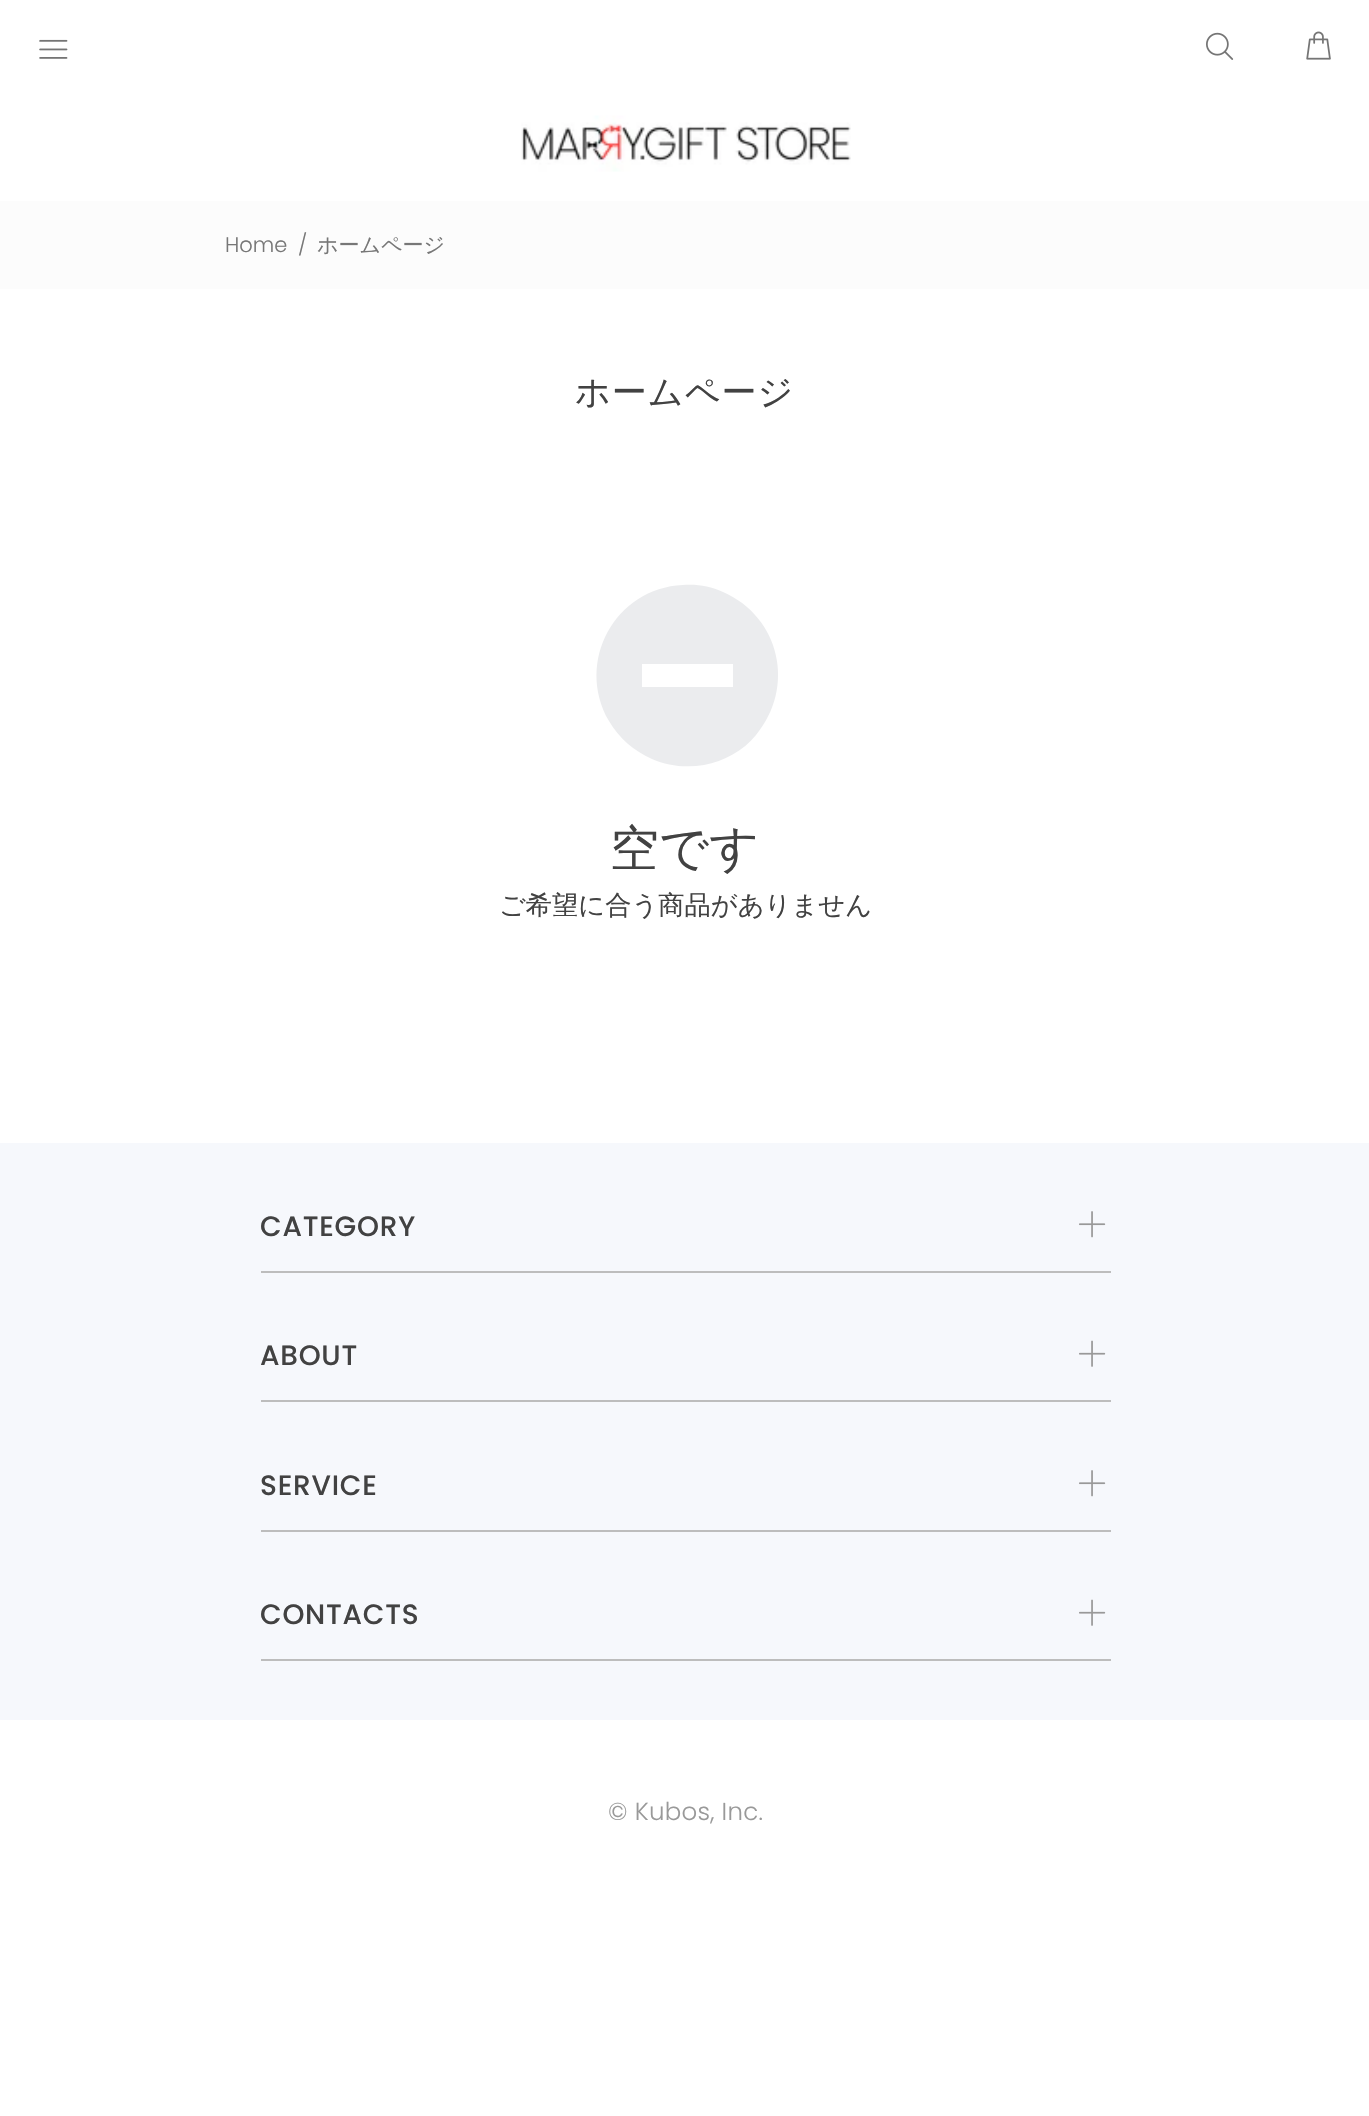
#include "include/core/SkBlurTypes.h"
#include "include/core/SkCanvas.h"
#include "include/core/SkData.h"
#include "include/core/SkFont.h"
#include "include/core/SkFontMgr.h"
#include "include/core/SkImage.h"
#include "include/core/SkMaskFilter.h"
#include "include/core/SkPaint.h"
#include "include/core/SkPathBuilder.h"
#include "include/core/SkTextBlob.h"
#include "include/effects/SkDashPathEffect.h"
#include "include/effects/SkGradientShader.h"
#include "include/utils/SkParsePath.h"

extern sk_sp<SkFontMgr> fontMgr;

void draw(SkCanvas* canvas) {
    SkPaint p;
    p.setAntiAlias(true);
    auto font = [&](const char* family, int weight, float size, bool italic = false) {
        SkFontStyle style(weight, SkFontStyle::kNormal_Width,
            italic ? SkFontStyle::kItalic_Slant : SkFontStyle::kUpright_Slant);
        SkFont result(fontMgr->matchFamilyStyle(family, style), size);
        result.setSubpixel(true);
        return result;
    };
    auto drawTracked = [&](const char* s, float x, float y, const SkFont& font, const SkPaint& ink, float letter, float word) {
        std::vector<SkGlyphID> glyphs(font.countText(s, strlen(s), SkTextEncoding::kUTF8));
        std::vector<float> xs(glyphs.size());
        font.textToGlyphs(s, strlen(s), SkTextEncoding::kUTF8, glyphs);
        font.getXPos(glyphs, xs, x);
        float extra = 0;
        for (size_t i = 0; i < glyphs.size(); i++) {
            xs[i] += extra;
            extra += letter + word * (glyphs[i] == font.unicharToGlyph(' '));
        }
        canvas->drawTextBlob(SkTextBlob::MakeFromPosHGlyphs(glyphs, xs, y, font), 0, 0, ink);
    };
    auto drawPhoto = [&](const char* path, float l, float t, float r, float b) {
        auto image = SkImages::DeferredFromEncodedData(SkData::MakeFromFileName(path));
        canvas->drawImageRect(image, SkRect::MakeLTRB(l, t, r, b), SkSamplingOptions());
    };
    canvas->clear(0xFFFFFFFF);
    drawPhoto("media/1.png", 39, 39, 68, 59);
    drawPhoto("media/2.png", 1206, 32, 1234, 60);
    drawPhoto("media/3.png", 1306, 31, 1331, 60);
    drawPhoto("media/4.png", 521, 115, 851, 172);
    p.setColor(0xFFFCFCFC);
    canvas->drawRect(SkRect::MakeLTRB(0, 201, 1369, 289), p);
    auto font1 = font("Poppins", 300, 21);
    p.setColor(0xFF777777);
    canvas->drawString("Home", 225, 252, font1, p);
    canvas->drawString("/", 298, 252, font1, p);
    auto font2 = font("WenQuanYi Zen Hei", 500, 21);
    canvas->drawString("ホームページ", 317, 252, font2, p);
    auto font3 = font("WenQuanYi Zen Hei", 500, 35);
    p.setColor(0xFF424242);
    drawTracked("ホームページ", 575, 404, font3, p, 1, 0);
    p.setColor(0xFFEBECEE);
    canvas->drawPath(SkPathBuilder().moveTo(723, 592).cubicTo(780, 617, 796, 687, 756, 735).cubicTo(743, 751, 724, 761, 704, 765).cubicTo(686, 768, 668, 766, 652, 759).cubicTo(634, 751, 619, 738, 609, 721).cubicTo(575, 662, 615, 588, 683, 585).cubicTo(697, 584, 710, 586, 723, 592).close().moveTo(733, 664).lineTo(642, 664).lineTo(642, 687).lineTo(733, 687).close().detach(), p);
    auto font4 = font("WenQuanYi Zen Hei", 500, 49);
    p.setColor(0xFF424242);
    canvas->drawString("空です", 610, 865, font4, p);
    auto font5 = font("WenQuanYi Zen Hei", 500, 26.25f);
    canvas->drawString("ご希望に合う商品がありません", 499, 914, font5, p);
    p.setColor(0xFFF6F8FC);
    canvas->drawRect(SkRect::MakeLTRB(0, 1143, 1369, 1720), p);
    p.setColor(0xFFBDBDBD);
    canvas->drawRect(SkRect::MakeLTRB(261, 1271, 1111, 1273), p);
    auto font6 = font("Poppins", 500, 28);
    p.setColor(0xFF424242);
    drawTracked("CATEGORY", 260, 1236, font6, p, 0.75f, 0);
    drawPhoto("media/5.png", 1079, 1211, 1106, 1238);
    p.setColor(0xFFBDBDBD);
    canvas->drawRect(SkRect::MakeLTRB(261, 1400, 1111, 1402), p);
    p.setColor(0xFF424242);
    drawTracked("ABOUT", 260, 1365, font6, p, 0.75f, 0);
    drawPhoto("media/6.png", 1079, 1340, 1106, 1367);
    p.setColor(0xFFBDBDBD);
    canvas->drawRect(SkRect::MakeLTRB(261, 1530, 1111, 1532), p);
    p.setColor(0xFF424242);
    drawTracked("SERVICE", 260, 1495, font6, p, 0.75f, 0);
    drawPhoto("media/5.png", 1079, 1470, 1106, 1497);
    p.setColor(0xFFBDBDBD);
    canvas->drawRect(SkRect::MakeLTRB(261, 1659, 1111, 1661), p);
    p.setColor(0xFF424242);
    drawTracked("CONTACTS", 260, 1624, font6, p, 0.75f, 0);
    drawPhoto("media/6.png", 1079, 1599, 1106, 1626);
    auto font7 = font("Poppins", 300, 24.5f);
    p.setColor(0xFF999999);
    drawTracked("© Kubos, Inc.", 608, 1820, font7, p, 0.25f, 0);
}
